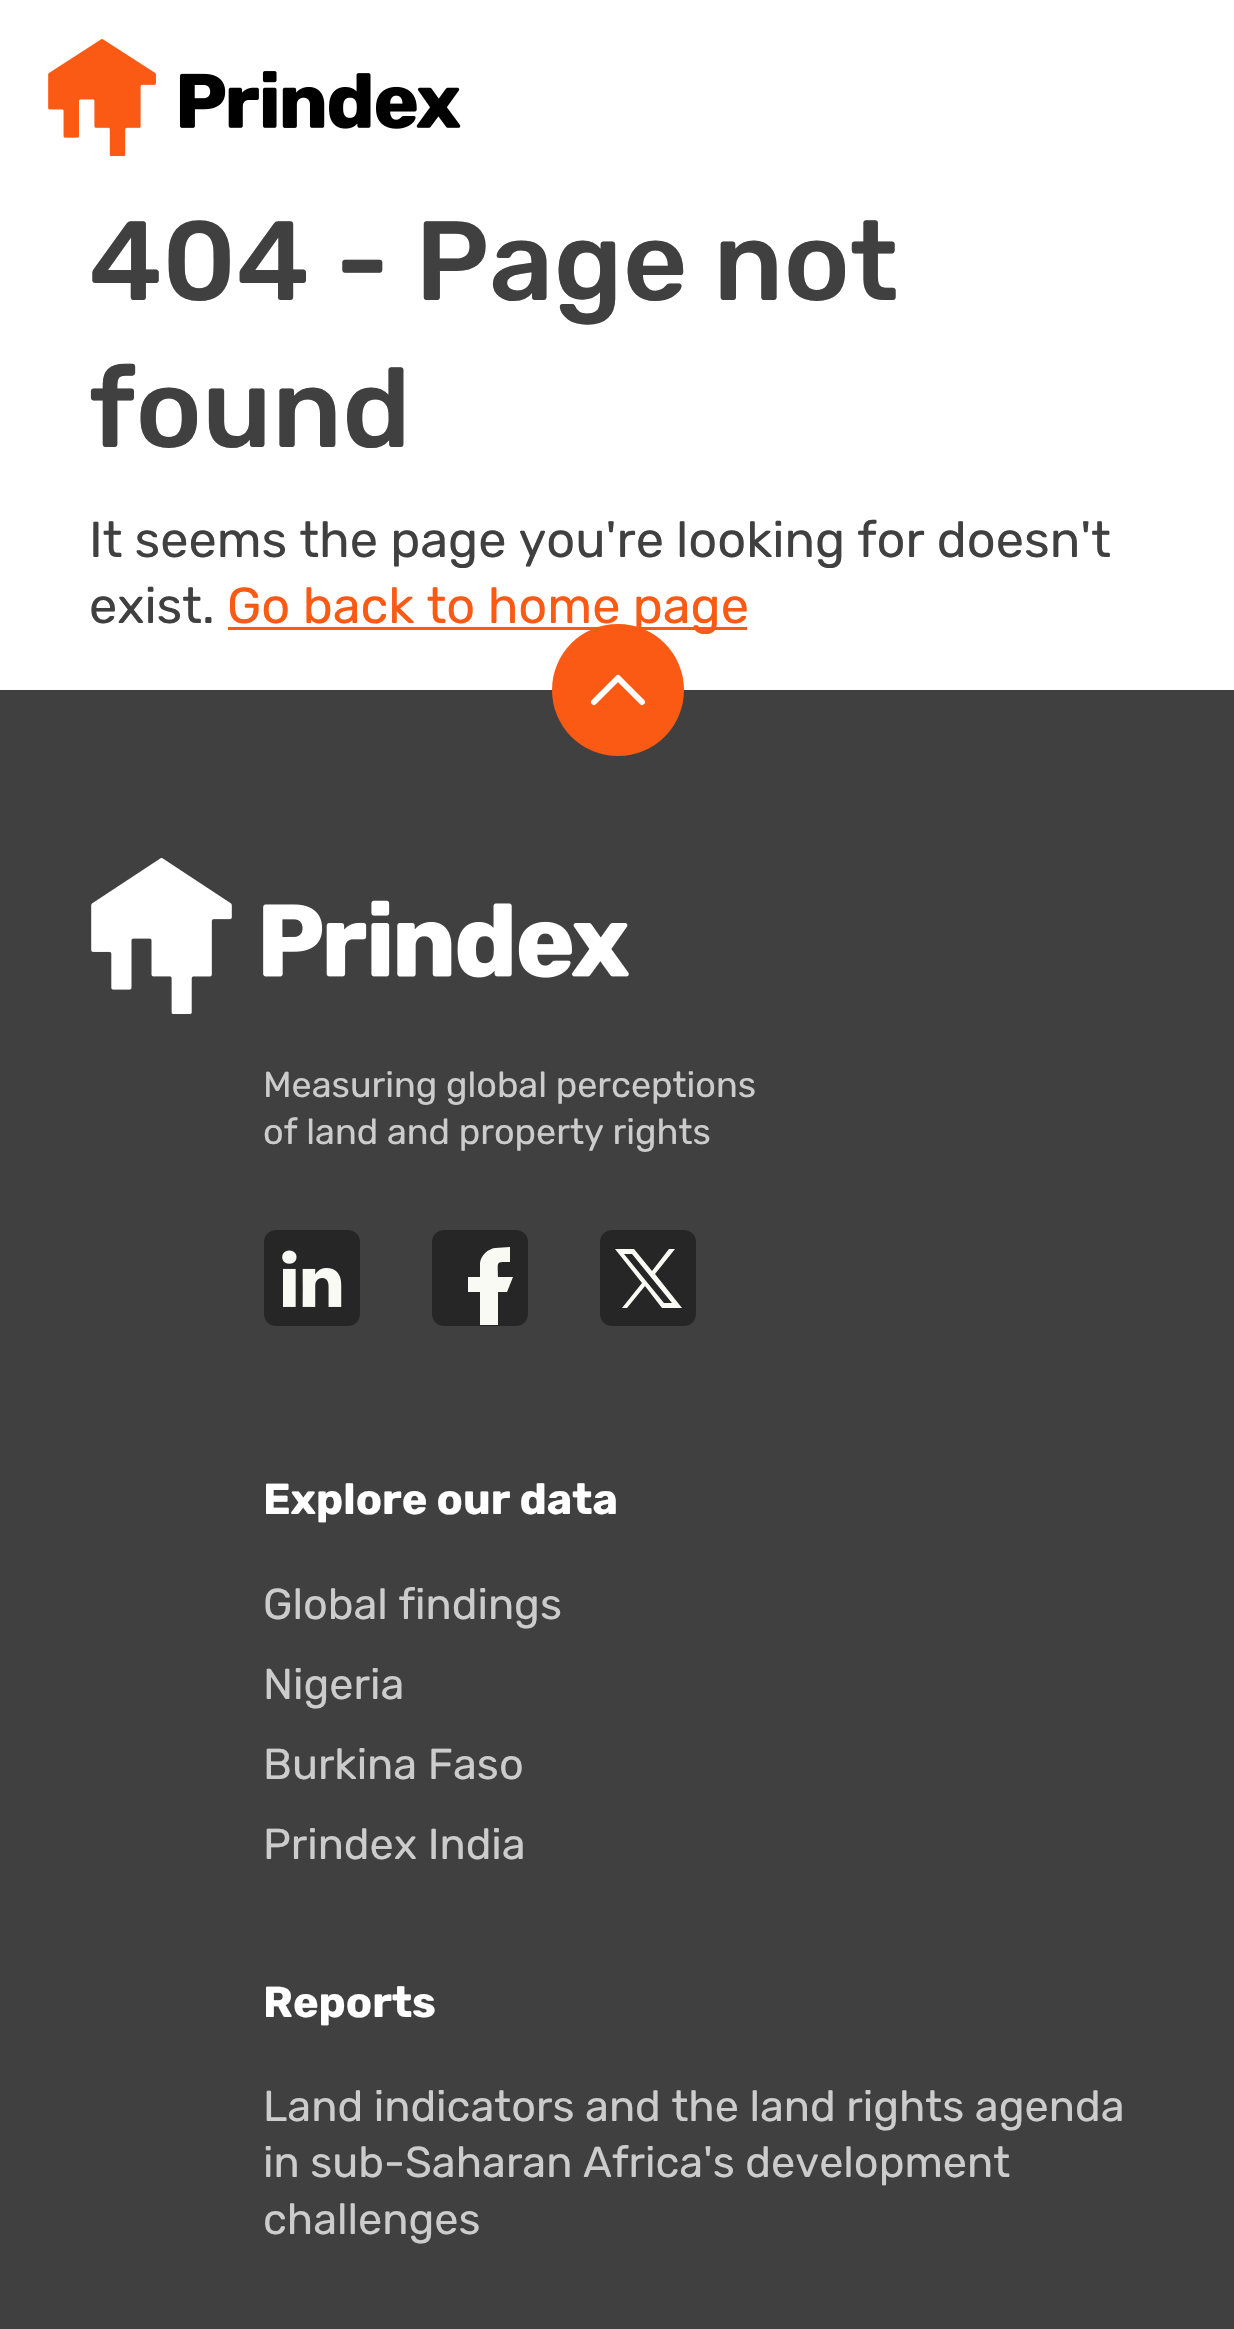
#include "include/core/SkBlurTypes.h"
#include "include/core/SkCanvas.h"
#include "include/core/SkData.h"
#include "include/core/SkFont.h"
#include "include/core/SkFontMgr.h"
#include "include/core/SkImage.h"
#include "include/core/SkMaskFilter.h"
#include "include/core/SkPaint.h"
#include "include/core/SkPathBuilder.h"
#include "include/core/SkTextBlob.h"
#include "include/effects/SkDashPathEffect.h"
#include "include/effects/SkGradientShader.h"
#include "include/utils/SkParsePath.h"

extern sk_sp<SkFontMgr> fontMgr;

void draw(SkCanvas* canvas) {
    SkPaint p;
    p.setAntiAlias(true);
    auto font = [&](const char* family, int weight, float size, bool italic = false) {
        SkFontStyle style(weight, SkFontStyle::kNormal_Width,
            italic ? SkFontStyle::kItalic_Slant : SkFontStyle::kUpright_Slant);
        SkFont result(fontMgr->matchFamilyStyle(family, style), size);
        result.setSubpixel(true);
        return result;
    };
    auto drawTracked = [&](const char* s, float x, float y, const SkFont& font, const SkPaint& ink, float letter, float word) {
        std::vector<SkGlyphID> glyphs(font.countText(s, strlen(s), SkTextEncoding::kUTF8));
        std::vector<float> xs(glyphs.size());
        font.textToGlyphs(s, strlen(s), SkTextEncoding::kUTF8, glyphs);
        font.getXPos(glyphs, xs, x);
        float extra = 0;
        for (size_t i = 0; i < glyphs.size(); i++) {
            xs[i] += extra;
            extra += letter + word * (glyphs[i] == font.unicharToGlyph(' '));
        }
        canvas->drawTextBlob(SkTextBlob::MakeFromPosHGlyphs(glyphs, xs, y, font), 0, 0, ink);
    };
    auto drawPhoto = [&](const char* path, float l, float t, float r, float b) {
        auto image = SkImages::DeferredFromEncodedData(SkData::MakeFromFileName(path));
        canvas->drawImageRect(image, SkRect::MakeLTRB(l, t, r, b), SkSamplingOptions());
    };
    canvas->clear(0xFFFFFFFF);
    drawPhoto("media/1.png", 48, 39, 461, 156);
    auto font1 = font("Rubik", 500, 112.5f);
    p.setColor(0xFF404040);
    canvas->drawString("404 - Page not", 89, 300, font1, p);
    canvas->drawString("found", 89, 447, font1, p);
    auto font2 = font("Rubik", 400, 50.45f);
    drawTracked("It seems the page you're looking for doesn't", 89, 557, font2, p, 0, -0.25f);
    canvas->drawString("exist.", 89, 623, font2, p);
    p.setColor(0xFFFA5A14);
    canvas->drawRect(SkRect::MakeLTRB(228, 627, 747, 630), p);
    canvas->drawString("Go back to home page", 227, 623, font2, p);
    p.setColor(0xFF404040);
    canvas->drawRect(SkRect::MakeLTRB(0, 690, 1234, 2329), p);
    p.setColor(0xFFFA5A14);
    canvas->drawCircle(618, 690, 66, p);
    p.setStyle(SkPaint::kStroke_Style);
    p.setStrokeWidth(6);
    p.setStrokeCap(SkPaint::kRound_Cap);
    p.setStrokeJoin(SkPaint::kRound_Join);
    p.setColor(0xFFFFFFFF);
    canvas->drawPath(SkPathBuilder().moveTo(594, 702).lineTo(618, 678).lineTo(642, 702).detach(), p);
    drawPhoto("media/2.png", 91, 858, 629, 1014);
    auto font3 = font("Rubik", 400, 36);
    p.setStyle(SkPaint::kFill_Style);
    p.setColor(0xFFCCCCCC);
    canvas->drawString("Measuring global perceptions", 263, 1097, font3, p);
    canvas->drawString("of land and property rights", 263, 1144, font3, p);
    p.setColor(0xFF262626);
    canvas->drawRoundRect(SkRect::MakeLTRB(264, 1230, 360, 1326), 12, 12, p);
    drawPhoto("media/3.png", 282, 1250, 342, 1307);
    canvas->drawRoundRect(SkRect::MakeLTRB(432, 1230, 528, 1326), 12, 12, p);
    p.setColor(0xFFFAFAF5);
    canvas->drawPath(SkPathBuilder().moveTo(513, 1277).lineTo(498, 1277).cubicTo(498, 1261, 495, 1262, 510, 1262).lineTo(510, 1247).lineTo(495, 1248).cubicTo(488, 1249, 481, 1255, 480, 1263).lineTo(480, 1277).lineTo(468, 1277).lineTo(468, 1292).lineTo(480, 1292).lineTo(480, 1325).lineTo(498, 1325).lineTo(498, 1292).lineTo(507, 1292).close().detach(), p);
    p.setColor(0xFF262626);
    canvas->drawRoundRect(SkRect::MakeLTRB(600, 1230, 696, 1326), 12, 12, p);
    p.setColor(0xFFFAFAF5);
    canvas->drawPath(SkPathBuilder().moveTo(655, 1274).lineTo(675, 1249).lineTo(669, 1249).lineTo(652, 1271).lineTo(634, 1249).lineTo(615, 1249).lineTo(642, 1283).lineTo(622, 1308).lineTo(627, 1308).lineTo(645, 1286).lineTo(662, 1308).lineTo(682, 1308).close().moveTo(624, 1254).lineTo(632, 1254).lineTo(672, 1303).lineTo(664, 1303).close().detach(), p);
    auto font4 = font("Rubik", 700, 43.25f);
    p.setColor(0xFFFFFFFF);
    canvas->drawString("Explore our data", 263, 1514, font4, p);
    auto font5 = font("Rubik", 400, 43.25f);
    p.setColor(0xFFCCCCCC);
    {
        const struct { const char* s; float x, y; } items[] = {
            {"Global findings", 263, 1619},
            {"Nigeria", 263, 1699},
            {"Burkina Faso", 263, 1779},
            {"Prindex India", 263, 1859},
        };
        for (auto [s, x, y] : items) {
            canvas->drawString(s, x, y, font5, p);
        }
    }
    p.setColor(0xFFFFFFFF);
    canvas->drawString("Reports", 263, 2017, font4, p);
    p.setColor(0xFFCCCCCC);
    {
        const struct { const char* s; float x, y; } items[] = {
            {"Land indicators and the land rights agenda", 263, 2121},
            {"in sub-Saharan Africa's development", 263, 2177},
            {"challenges", 263, 2234},
        };
        for (auto [s, x, y] : items) {
            canvas->drawString(s, x, y, font5, p);
        }
    }
}
